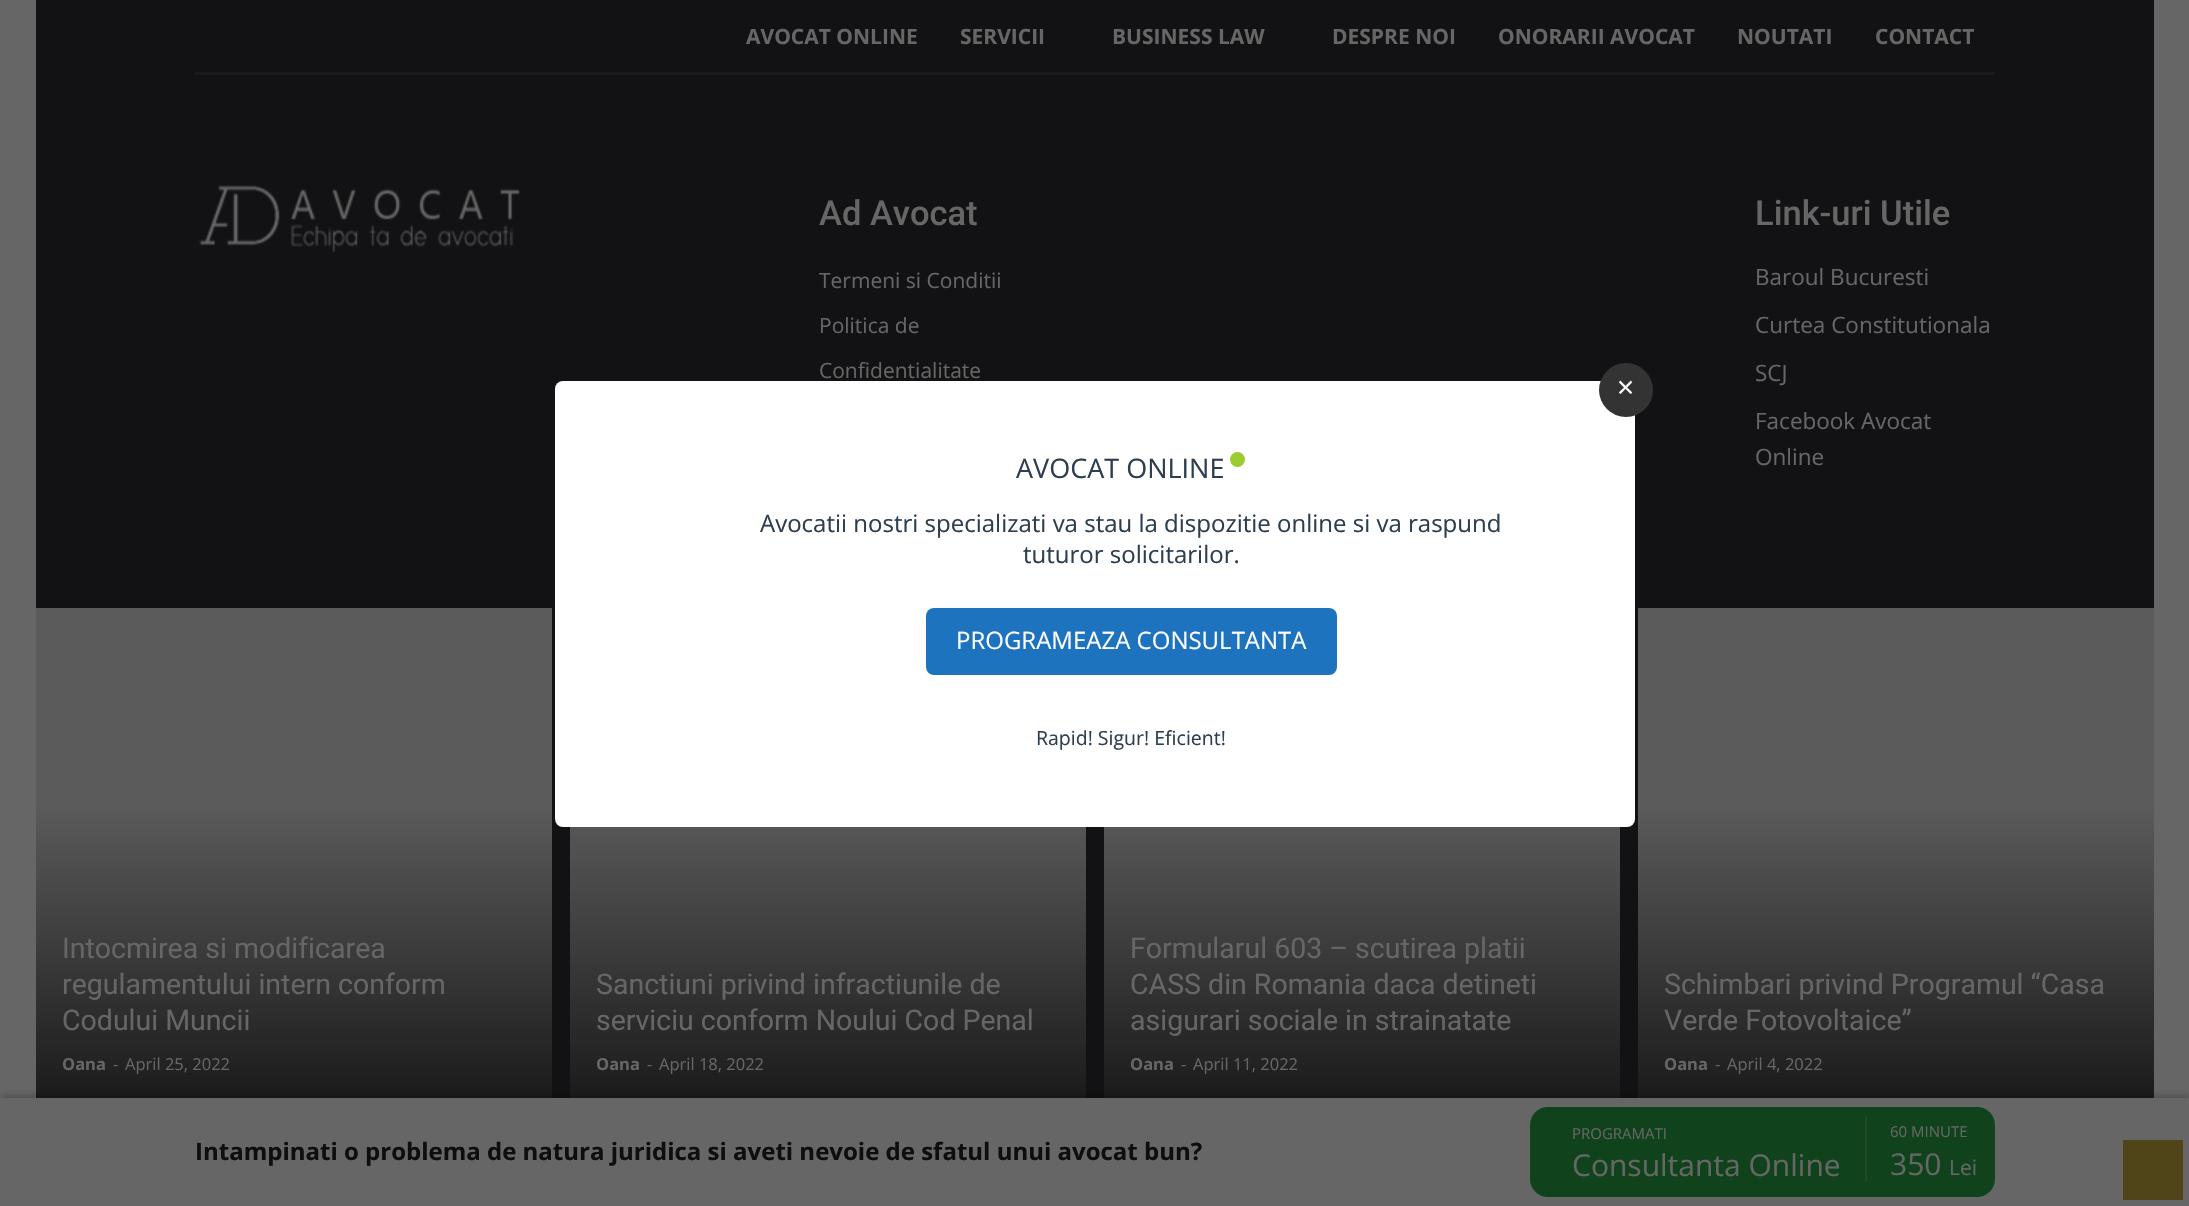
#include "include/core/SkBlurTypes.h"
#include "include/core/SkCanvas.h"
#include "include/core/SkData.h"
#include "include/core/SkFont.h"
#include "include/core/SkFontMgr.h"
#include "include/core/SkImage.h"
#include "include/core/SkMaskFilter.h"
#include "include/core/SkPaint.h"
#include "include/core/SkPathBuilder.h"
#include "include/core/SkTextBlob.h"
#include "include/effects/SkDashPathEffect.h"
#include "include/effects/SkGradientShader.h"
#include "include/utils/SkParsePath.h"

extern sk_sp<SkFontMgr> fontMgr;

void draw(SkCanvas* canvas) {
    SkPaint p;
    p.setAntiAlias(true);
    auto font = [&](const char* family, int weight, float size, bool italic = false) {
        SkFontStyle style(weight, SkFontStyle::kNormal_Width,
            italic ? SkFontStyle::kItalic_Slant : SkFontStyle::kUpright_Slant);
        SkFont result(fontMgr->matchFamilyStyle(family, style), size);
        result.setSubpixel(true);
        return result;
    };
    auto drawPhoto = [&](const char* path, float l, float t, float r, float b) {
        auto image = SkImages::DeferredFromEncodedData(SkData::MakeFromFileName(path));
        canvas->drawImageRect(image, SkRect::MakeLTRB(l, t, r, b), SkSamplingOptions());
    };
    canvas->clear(0xFF666666);
    p.setColor(0xFF121214);
    canvas->drawRect(SkRect::MakeLTRB(36, 0, 2154, 1098), p);
    p.setColor(0xFF1A191B);
    canvas->drawRect(SkRect::MakeLTRB(195, 72, 1995, 75), p);
    auto font1 = font("Open Sans", 700, 21);
    p.setColor(0xFF666666);
    {
        const struct { const char* s; float x, y; } items[] = {
            {"AVOCAT ONLINE", 746, 44},
            {"SERVICII", 960, 44},
            {"BUSINESS LAW", 1112, 44},
            {"DESPRE NOI", 1332, 44},
            {"ONORARII AVOCAT", 1498, 44},
            {"NOUTATI", 1737, 44},
            {"CONTACT", 1875, 44},
        };
        for (auto [s, x, y] : items) {
            canvas->drawString(s, x, y, font1, p);
        }
    }
    drawPhoto("media/1.png", 199, 185, 520, 253);
    auto font2 = font("Roboto", 500, 34.5f);
    canvas->drawString("Ad Avocat", 819, 225, font2, p);
    auto font3 = font("Open Sans", 400, 21);
    {
        const struct { const char* s; float x, y; } items[] = {
            {"Termeni si Conditii", 819, 288},
            {"Politica de", 819, 333},
            {"Confidentialitate", 819, 378},
        };
        for (auto [s, x, y] : items) {
            canvas->drawString(s, x, y, font3, p);
        }
    }
    canvas->drawString("Link-uri Utile", 1755, 225, font2, p);
    auto font4 = font("Open Sans", 400, 22.5f);
    {
        const struct { const char* s; float x, y; } items[] = {
            {"Baroul Bucuresti", 1755, 285},
            {"Curtea Constitutionala", 1755, 333},
            {"SCJ", 1755, 381},
            {"Facebook Avocat", 1755, 429},
            {"Online", 1755, 465},
        };
        for (auto [s, x, y] : items) {
            canvas->drawString(s, x, y, font4, p);
        }
    }
    {
        const SkColor colors[] = {0xFF5B5B5B, 0xFF1B1B1B};
        const float stops[] = {0.4f, 1};
        const SkPoint ends[] = {{294, 608}, {294, 1098}};
        p.setShader(SkGradientShader::MakeLinear(ends, colors, stops, 2, SkTileMode::kClamp));
        p.setAlpha(255);
    }
    canvas->drawRect(SkRect::MakeLTRB(36, 608, 552, 1098), p);
    auto font5 = font("Roboto", 400, 28.5f);
    p.setShader(nullptr);
    p.setColor(0xFF666666);
    {
        const struct { const char* s; float x, y; } items[] = {
            {"Intocmirea si modificarea", 62, 958},
            {"regulamentului intern conform", 62, 994},
            {"Codului Muncii", 62, 1030},
        };
        for (auto [s, x, y] : items) {
            canvas->drawString(s, x, y, font5, p);
        }
    }
    auto font6 = font("Open Sans", 700, 16.5f);
    canvas->drawString("Oana", 62, 1070, font6, p);
    auto font7 = font("Open Sans", 400, 16.5f);
    canvas->drawString("-", 113, 1070, font7, p);
    canvas->drawString("April 25, 2022", 125, 1070, font7, p);
    {
        const SkColor colors[] = {0xFF5B5B5B, 0xFF1B1B1B};
        const float stops[] = {0.4f, 1};
        const SkPoint ends[] = {{828, 608}, {828, 1098}};
        p.setShader(SkGradientShader::MakeLinear(ends, colors, stops, 2, SkTileMode::kClamp));
        p.setAlpha(255);
    }
    canvas->drawRect(SkRect::MakeLTRB(570, 827, 1086, 1098), p);
    p.setShader(nullptr);
    p.setColor(0xFF666666);
    canvas->drawString("Sanctiuni privind infractiunile de", 596, 994, font5, p);
    canvas->drawString("serviciu conform Noului Cod Penal", 596, 1030, font5, p);
    canvas->drawString("Oana", 596, 1070, font6, p);
    canvas->drawString("-", 647, 1070, font7, p);
    canvas->drawString("April 18, 2022", 659, 1070, font7, p);
    {
        const SkColor colors[] = {0xFF5B5B5B, 0xFF1B1B1B};
        const float stops[] = {0.4f, 1};
        const SkPoint ends[] = {{1362, 608}, {1362, 1098}};
        p.setShader(SkGradientShader::MakeLinear(ends, colors, stops, 2, SkTileMode::kClamp));
        p.setAlpha(255);
    }
    canvas->drawRect(SkRect::MakeLTRB(1104, 827, 1620, 1098), p);
    p.setShader(nullptr);
    p.setColor(0xFF666666);
    {
        const struct { const char* s; float x, y; } items[] = {
            {"Formularul 603 – scutirea platii", 1130, 958},
            {"CASS din Romania daca detineti", 1130, 994},
            {"asigurari sociale in strainatate", 1130, 1030},
        };
        for (auto [s, x, y] : items) {
            canvas->drawString(s, x, y, font5, p);
        }
    }
    canvas->drawString("Oana", 1130, 1070, font6, p);
    canvas->drawString("-", 1181, 1070, font7, p);
    canvas->drawString("April 11, 2022", 1193, 1070, font7, p);
    {
        const SkColor colors[] = {0xFF5B5B5B, 0xFF1B1B1B};
        const float stops[] = {0.4f, 1};
        const SkPoint ends[] = {{1896, 608}, {1896, 1098}};
        p.setShader(SkGradientShader::MakeLinear(ends, colors, stops, 2, SkTileMode::kClamp));
        p.setAlpha(255);
    }
    canvas->drawRect(SkRect::MakeLTRB(1638, 608, 2154, 1098), p);
    p.setShader(nullptr);
    p.setColor(0xFF666666);
    canvas->drawString("Schimbari privind Programul “Casa", 1664, 994, font5, p);
    canvas->drawString("Verde Fotovoltaice”", 1664, 1030, font5, p);
    canvas->drawString("Oana", 1664, 1070, font6, p);
    canvas->drawString("-", 1715, 1070, font7, p);
    canvas->drawString("April 4, 2022", 1727, 1070, font7, p);
    p.setColor(0xFFFFFFFF);
    canvas->drawRoundRect(SkRect::MakeLTRB(555, 381, 1635, 827), 8, 8, p);
    p.setColor(0xFF333333);
    canvas->drawCircle(1626, 390, 27, p);
    auto font8 = font("Open Sans", 400, 30);
    p.setColor(0xFFFFFFFF);
    canvas->drawString("×", 1617, 398, font8, p);
    auto font9 = font("Open Sans", 400, 27);
    p.setColor(0xFF2C3E50);
    canvas->drawString("AVOCAT ONLINE", 1016, 478, font9, p);
    p.setColor(0xFF9ACD32);
    canvas->drawCircle(1237.5f, 459.5f, 7.5f, p);
    auto font10 = font("Open Sans", 400, 24);
    p.setColor(0xFF2C3E50);
    canvas->drawString("Avocatii nostri specializati va stau la dispozitie online si va raspund", 760, 532, font10, p);
    canvas->drawString("tuturor solicitarilor.", 1023, 563, font10, p);
    p.setColor(0xFF1E73BE);
    canvas->drawRoundRect(SkRect::MakeLTRB(926, 608, 1337, 675), 8, 8, p);
    p.setColor(0xFFFFFFFF);
    canvas->drawString("PROGRAMEAZA CONSULTANTA", 956, 649, font10, p);
    auto font11 = font("Open Sans", 400, 19.5f);
    p.setColor(0xFF2C3E50);
    canvas->drawString("Rapid! Sigur! Eficient!", 1036, 745, font11, p);
    p.setColor(0x33000000);
    p.setMaskFilter(SkMaskFilter::MakeBlur(kNormal_SkBlurStyle, 3));
    canvas->drawRect(SkRect::MakeLTRB(0, 1095, 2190, 1203), p);
    p.setMaskFilter(nullptr);
    p.setColor(0xFF666666);
    canvas->drawRect(SkRect::MakeLTRB(0, 1098, 2189, 1206), p);
    auto font12 = font("Open Sans", 700, 24);
    p.setColor(0xFF0E0E0E);
    canvas->drawString("Intampinati o problema de natura juridica si aveti nevoie de sfatul unui avocat bun?", 195, 1160, font12, p);
    p.setColor(0xFF10431C);
    canvas->drawRoundRect(SkRect::MakeLTRB(1530, 1107, 1995, 1197), 18, 18, p);
    auto font13 = font("Open Sans", 400, 15);
    p.setColor(0xFF666666);
    canvas->drawString("PROGRAMATI", 1572, 1139, font13, p);
    canvas->drawString("Consultanta Online", 1572, 1176, font8, p);
    p.setColor(0xFF1F4929);
    canvas->drawRect(SkRect::MakeLTRB(1865, 1116, 1867, 1182), p);
    p.setColor(0xFF666666);
    canvas->drawString("60 MINUTE", 1890, 1137, font13, p);
    canvas->drawString("350", 1890, 1175, font8, p);
    canvas->drawString("Lei", 1949, 1175, font3, p);
    p.setColor(0xFF4F4519);
    canvas->drawRect(SkRect::MakeLTRB(2123, 1140, 2183, 1200), p);
}
